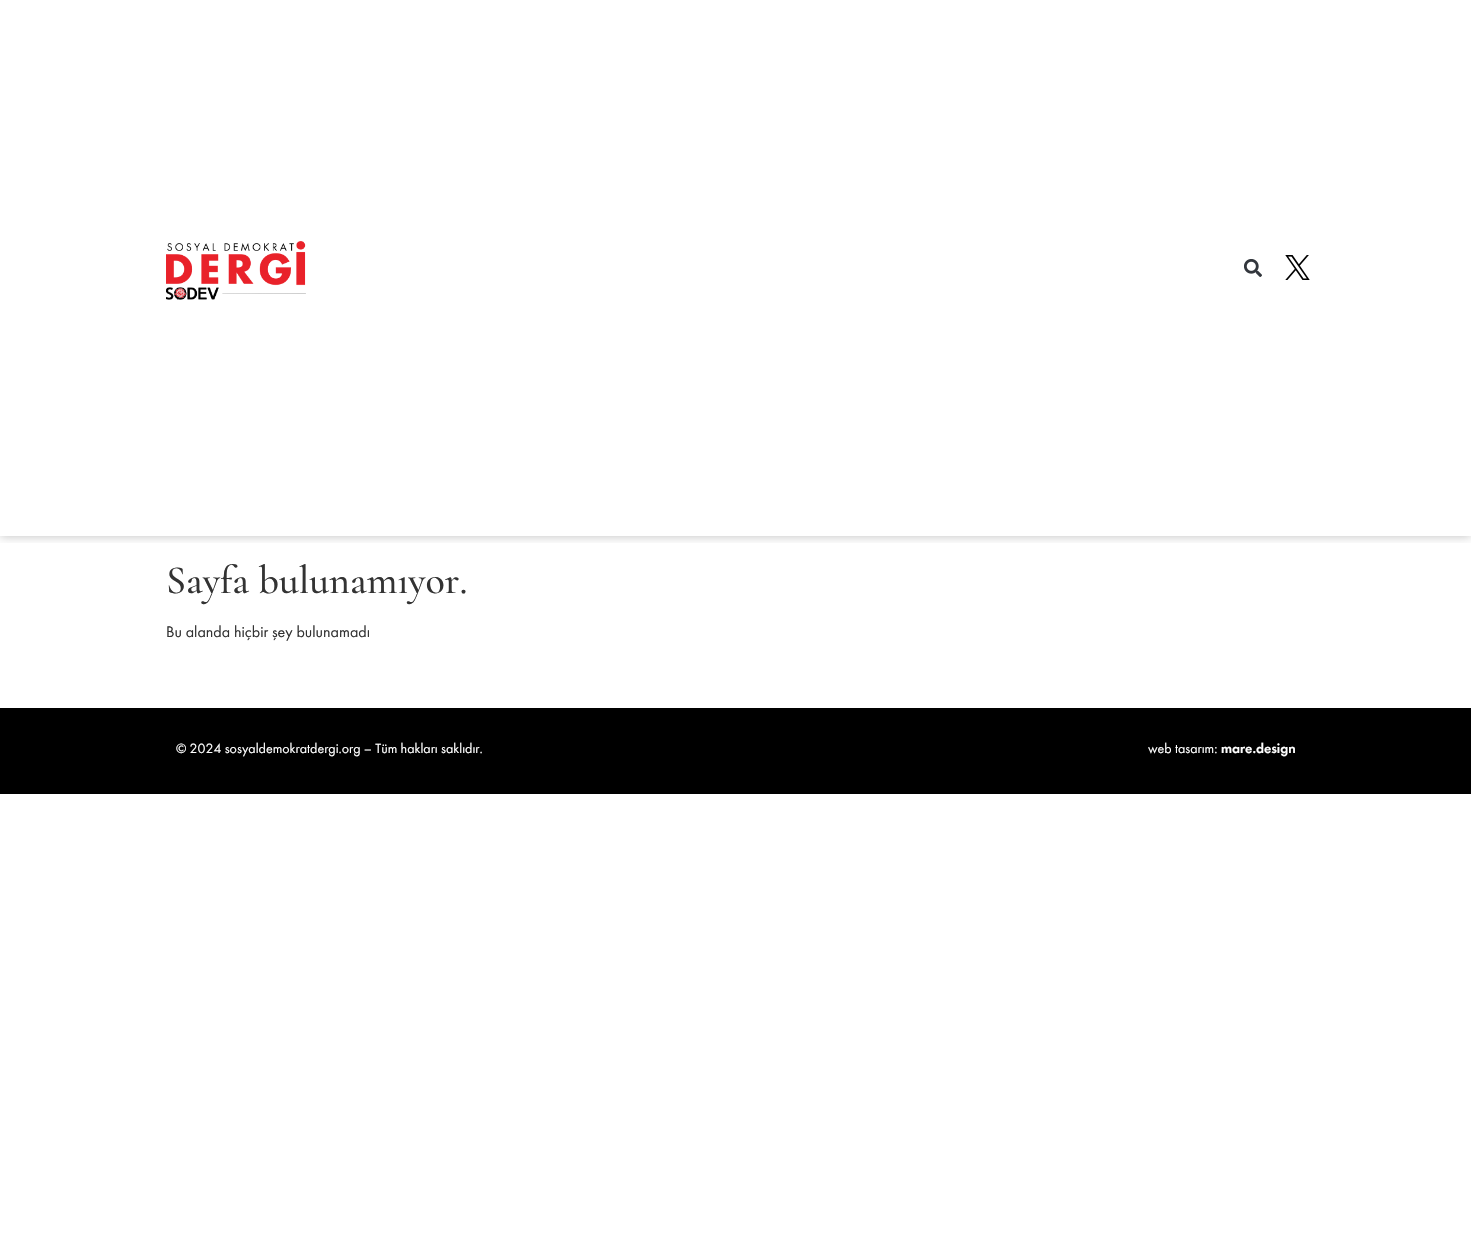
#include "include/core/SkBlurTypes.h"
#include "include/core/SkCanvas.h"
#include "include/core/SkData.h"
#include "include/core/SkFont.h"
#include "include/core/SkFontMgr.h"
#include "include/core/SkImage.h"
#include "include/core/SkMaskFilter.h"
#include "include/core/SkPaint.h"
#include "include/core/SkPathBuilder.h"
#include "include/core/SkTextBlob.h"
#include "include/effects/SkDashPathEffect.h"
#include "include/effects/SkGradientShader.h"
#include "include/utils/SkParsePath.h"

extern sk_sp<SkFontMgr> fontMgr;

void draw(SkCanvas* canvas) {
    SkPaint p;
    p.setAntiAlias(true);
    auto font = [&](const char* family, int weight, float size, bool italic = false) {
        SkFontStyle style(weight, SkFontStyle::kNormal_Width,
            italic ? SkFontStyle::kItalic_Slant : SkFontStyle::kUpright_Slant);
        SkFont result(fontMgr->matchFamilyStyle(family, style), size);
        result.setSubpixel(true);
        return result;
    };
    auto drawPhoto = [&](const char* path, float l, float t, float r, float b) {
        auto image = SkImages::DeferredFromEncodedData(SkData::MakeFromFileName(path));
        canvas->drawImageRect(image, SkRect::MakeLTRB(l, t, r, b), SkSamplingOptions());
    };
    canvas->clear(0xFFFFFFFF);
    canvas->save();
    canvas->clipRect(SkRect::MakeLTRB(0, 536, 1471, 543));
    p.setColor(0x40000000);
    p.setMaskFilter(SkMaskFilter::MakeBlur(kNormal_SkBlurStyle, 5));
    canvas->drawRect(SkRect::MakeLTRB(0, 0, 1471, 536), p);
    p.setMaskFilter(nullptr);
    canvas->restore();
    drawPhoto("media/1.png", 166, 241, 306, 300);
    drawPhoto("media/2.png", 1244, 259, 1262, 277);
    drawPhoto("media/3.png", 1285, 255, 1310, 280);
    auto font1 = font("Cormorant Garamond", 500, 40);
    p.setColor(0xFF333333);
    canvas->drawString("Sayfa bulunamıyor.", 166, 593, font1, p);
    auto font2 = font("Futura PT", 400, 16);
    canvas->drawString("Bu alanda hiçbir şey bulunamadı", 166, 637, font2, p);
    p.setColor(0xFF000000);
    canvas->drawRect(SkRect::MakeLTRB(0, 708, 1471, 794), p);
    auto font3 = font("Futura PT", 400, 14);
    p.setColor(0xFFFFFFFF);
    canvas->drawString("© 2024 sosyaldemokratdergi.org – Tüm hakları saklıdır.", 176, 753, font3, p);
    canvas->drawString("web tasarım:", 1148, 753, font3, p);
    auto font4 = font("Futura PT", 500, 14);
    canvas->drawString("mare.design", 1221, 753, font4, p);
}
